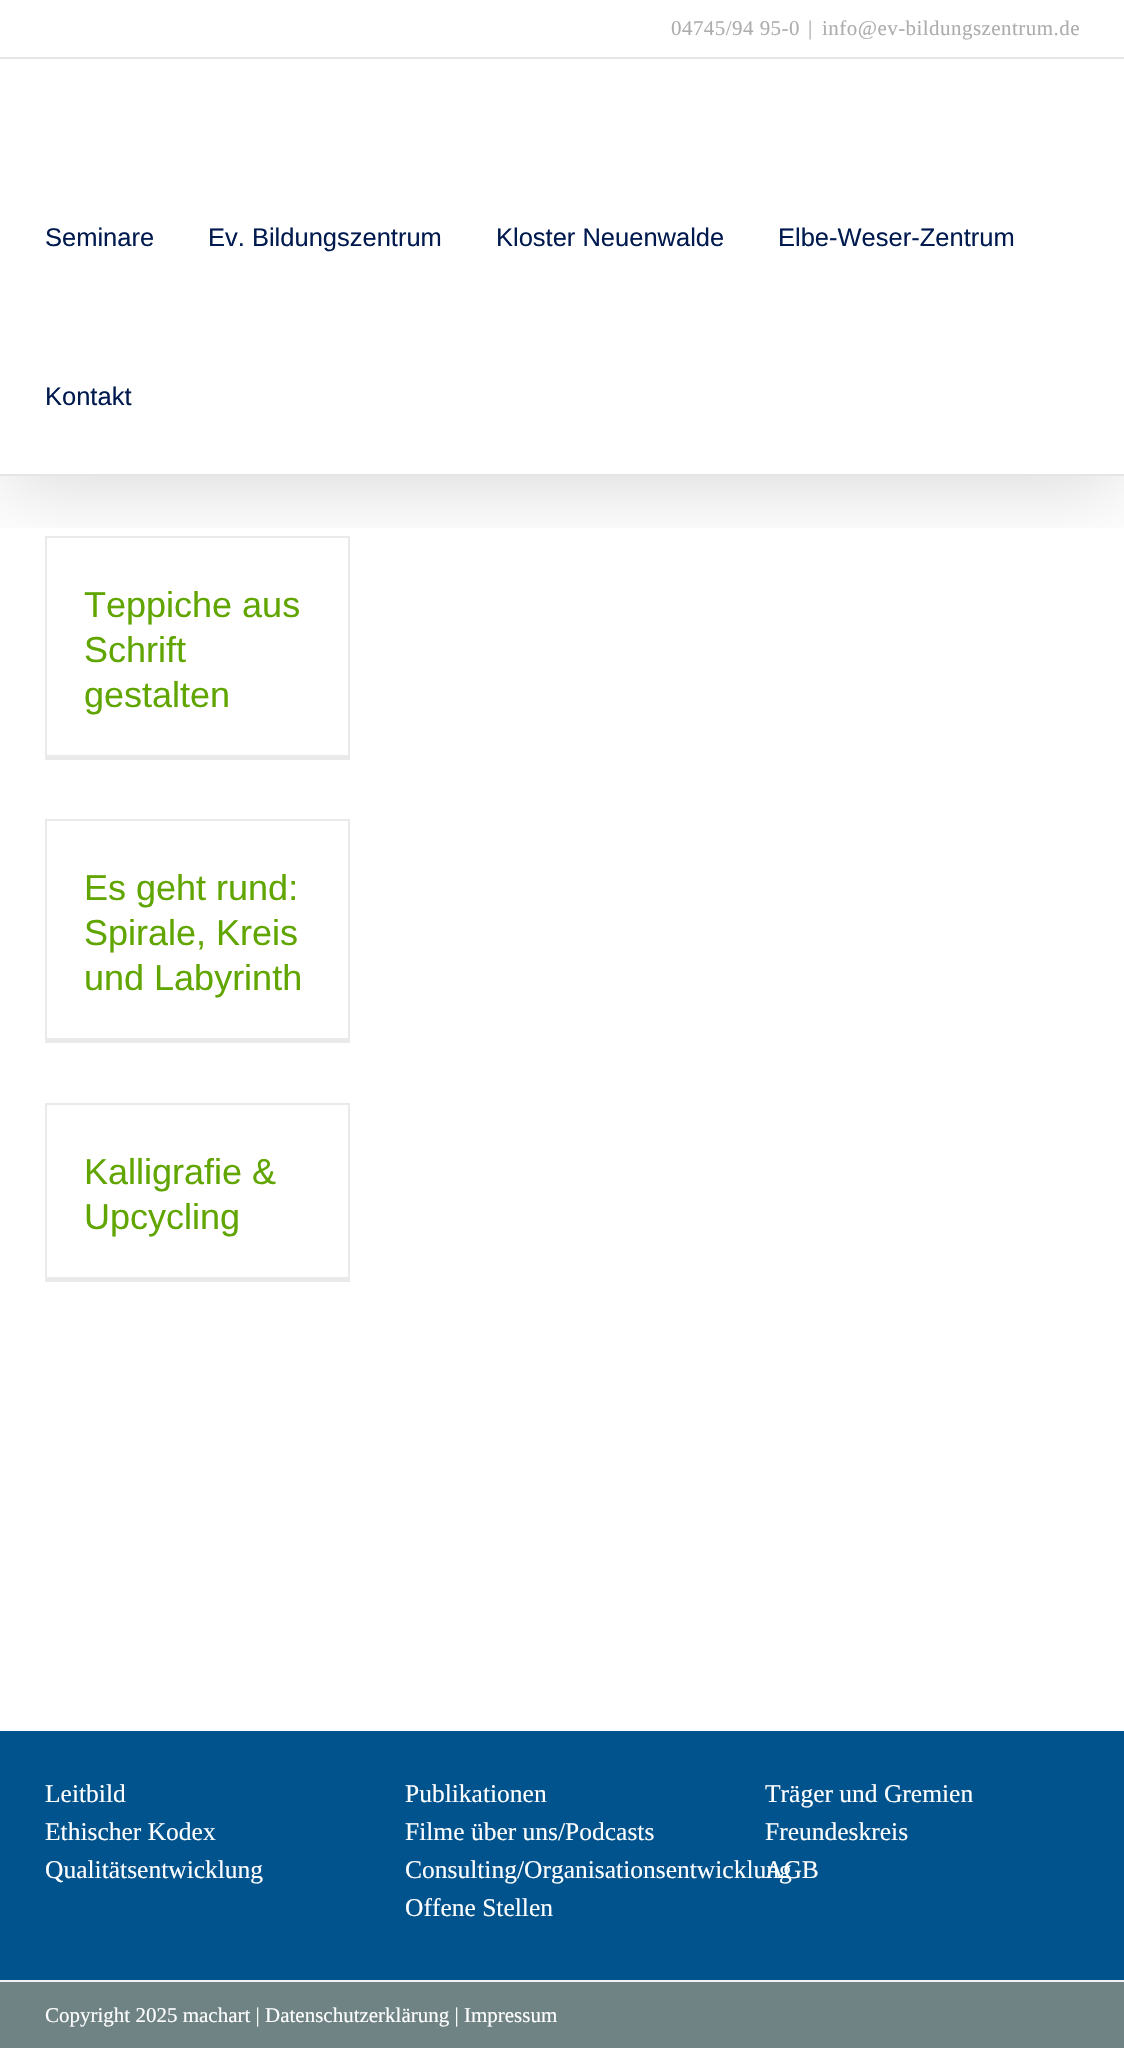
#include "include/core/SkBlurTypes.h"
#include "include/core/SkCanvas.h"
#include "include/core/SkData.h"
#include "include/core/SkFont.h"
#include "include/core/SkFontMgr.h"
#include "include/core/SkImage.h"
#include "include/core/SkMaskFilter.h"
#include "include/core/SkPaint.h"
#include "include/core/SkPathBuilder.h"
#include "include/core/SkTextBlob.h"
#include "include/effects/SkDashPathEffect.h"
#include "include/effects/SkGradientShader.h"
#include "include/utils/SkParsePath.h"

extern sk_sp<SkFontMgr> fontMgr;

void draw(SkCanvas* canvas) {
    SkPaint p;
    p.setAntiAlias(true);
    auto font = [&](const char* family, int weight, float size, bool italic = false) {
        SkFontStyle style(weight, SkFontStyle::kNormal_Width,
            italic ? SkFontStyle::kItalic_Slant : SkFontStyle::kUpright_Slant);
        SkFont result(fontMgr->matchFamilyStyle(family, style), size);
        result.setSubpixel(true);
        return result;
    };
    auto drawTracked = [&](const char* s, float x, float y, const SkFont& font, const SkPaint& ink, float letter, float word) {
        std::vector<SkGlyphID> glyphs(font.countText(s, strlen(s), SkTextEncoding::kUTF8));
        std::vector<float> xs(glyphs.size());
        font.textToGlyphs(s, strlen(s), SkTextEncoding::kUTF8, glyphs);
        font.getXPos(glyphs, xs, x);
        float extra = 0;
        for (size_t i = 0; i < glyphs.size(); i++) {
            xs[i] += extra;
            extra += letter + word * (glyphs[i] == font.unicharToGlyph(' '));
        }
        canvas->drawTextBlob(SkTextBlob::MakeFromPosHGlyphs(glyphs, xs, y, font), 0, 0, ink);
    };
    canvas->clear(0xFFFFFFFF);
    {
        const struct { float l, t, r, b; SkColor color; } items[] = {
            {45, 536, 350, 538, 0xFFEBEAEA},
            {348, 536, 350, 759, 0xFFEBEAEA},
            {45, 755, 350, 760, 0xFFEBEAEA},
            {45, 536, 47, 759, 0xFFEBEAEA},
        };
        for (auto [l, t, r, b, color] : items) {
            p.setColor(color);
            canvas->drawRect(SkRect::MakeLTRB(l, t, r, b), p);
        }
    }
    canvas->save();
    canvas->clipRect(SkRect::MakeLTRB(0, 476, 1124, 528));
    p.setColor(0x24000000);
    p.setMaskFilter(SkMaskFilter::MakeBlur(kNormal_SkBlurStyle, 37.5f));
    canvas->drawRect(SkRect::MakeLTRB(3, 18, 1122, 488), p);
    p.setMaskFilter(nullptr);
    canvas->restore();
    p.setColor(0xFFE5E5E5);
    canvas->drawRect(SkRect::MakeLTRB(0, 57, 1124, 59), p);
    auto font1 = font("Liberation Serif", 400, 21);
    p.setColor(0xFFADADAD);
    {
        const struct { const char* s; float x, y; } items[] = {
            {"04745/94 95-0", 671, 35},
            {"|", 808, 35},
            {"info@ev-bildungszentrum.de", 822, 35},
        };
        for (auto [s, x, y] : items) {
            drawTracked(s, x, y, font1, p, 0.45f, 0);
        }
    }
    p.setColor(0xFFE5E5E5);
    canvas->drawRect(SkRect::MakeLTRB(0, 474, 1124, 476), p);
    auto font2 = font("Liberation Sans", 400, 25.5f);
    p.setColor(0xFF001A4F);
    {
        const struct { const char* s; float x, y; } items[] = {
            {"Seminare", 45, 246},
            {"Ev. Bildungszentrum", 208, 246},
            {"Kloster Neuenwalde", 496, 246},
            {"Elbe-Weser-Zentrum", 778, 246},
            {"Kontakt", 45, 405},
        };
        for (auto [s, x, y] : items) {
            canvas->drawString(s, x, y, font2, p);
        }
    }
    auto font3 = font("Liberation Sans", 400, 36);
    p.setColor(0xFF60A500);
    {
        const struct { const char* s; float x, y; } items[] = {
            {"Teppiche aus", 84, 617},
            {"Schrift", 84, 662},
            {"gestalten", 84, 707},
        };
        for (auto [s, x, y] : items) {
            canvas->drawString(s, x, y, font3, p);
        }
    }
    {
        const struct { float l, t, r, b; SkColor color; } items[] = {
            {45, 819, 350, 821, 0xFFEBEAEA},
            {348, 819, 350, 1043, 0xFFEBEAEA},
            {45, 1038, 350, 1043, 0xFFEBEAEA},
            {45, 819, 47, 1043, 0xFFEBEAEA},
        };
        for (auto [l, t, r, b, color] : items) {
            p.setColor(color);
            canvas->drawRect(SkRect::MakeLTRB(l, t, r, b), p);
        }
    }
    p.setColor(0xFF60A500);
    {
        const struct { const char* s; float x, y; } items[] = {
            {"Es geht rund:", 84, 900},
            {"Spirale, Kreis", 84, 945},
            {"und Labyrinth", 84, 990},
        };
        for (auto [s, x, y] : items) {
            canvas->drawString(s, x, y, font3, p);
        }
    }
    {
        const struct { float l, t, r, b; SkColor color; } items[] = {
            {45, 1103, 350, 1105, 0xFFEBEAEA},
            {348, 1103, 350, 1281, 0xFFEBEAEA},
            {45, 1277, 350, 1282, 0xFFEBEAEA},
            {45, 1103, 47, 1281, 0xFFEBEAEA},
        };
        for (auto [l, t, r, b, color] : items) {
            p.setColor(color);
            canvas->drawRect(SkRect::MakeLTRB(l, t, r, b), p);
        }
    }
    p.setColor(0xFF60A500);
    canvas->drawString("Kalligrafie &", 84, 1184, font3, p);
    canvas->drawString("Upcycling", 84, 1229, font3, p);
    p.setColor(0xFF01538E);
    canvas->drawRect(SkRect::MakeLTRB(0, 1731, 1124, 1980), p);
    auto font4 = font("Liberation Serif", 400, 25.5f);
    p.setColor(0xFFFFFFFF);
    {
        const struct { const char* s; float x, y; } items[] = {
            {"Leitbild", 45, 1802},
            {"Ethischer Kodex", 45, 1840},
            {"Qualitätsentwicklung", 45, 1878},
            {"Publikationen", 405, 1802},
            {"Filme über uns/Podcasts", 405, 1840},
            {"Consulting/Organisationsentwicklung", 405, 1878},
            {"Offene Stellen", 405, 1916},
            {"Träger und Gremien", 765, 1802},
            {"Freundeskreis", 765, 1840},
            {"AGB", 765, 1878},
        };
        for (auto [s, x, y] : items) {
            canvas->drawString(s, x, y, font4, p);
        }
    }
    p.setColor(0xFF6F8284);
    canvas->drawRect(SkRect::MakeLTRB(0, 1982, 1124, 2048), p);
    p.setColor(0xFFEEF0F2);
    canvas->drawRect(SkRect::MakeLTRB(0, 1980, 1124, 1982), p);
    p.setColor(0xFFFFFFFF);
    canvas->drawString("Copyright 2025 machart | Datenschutzerklärung | Impressum", 45, 2022, font1, p);
}
